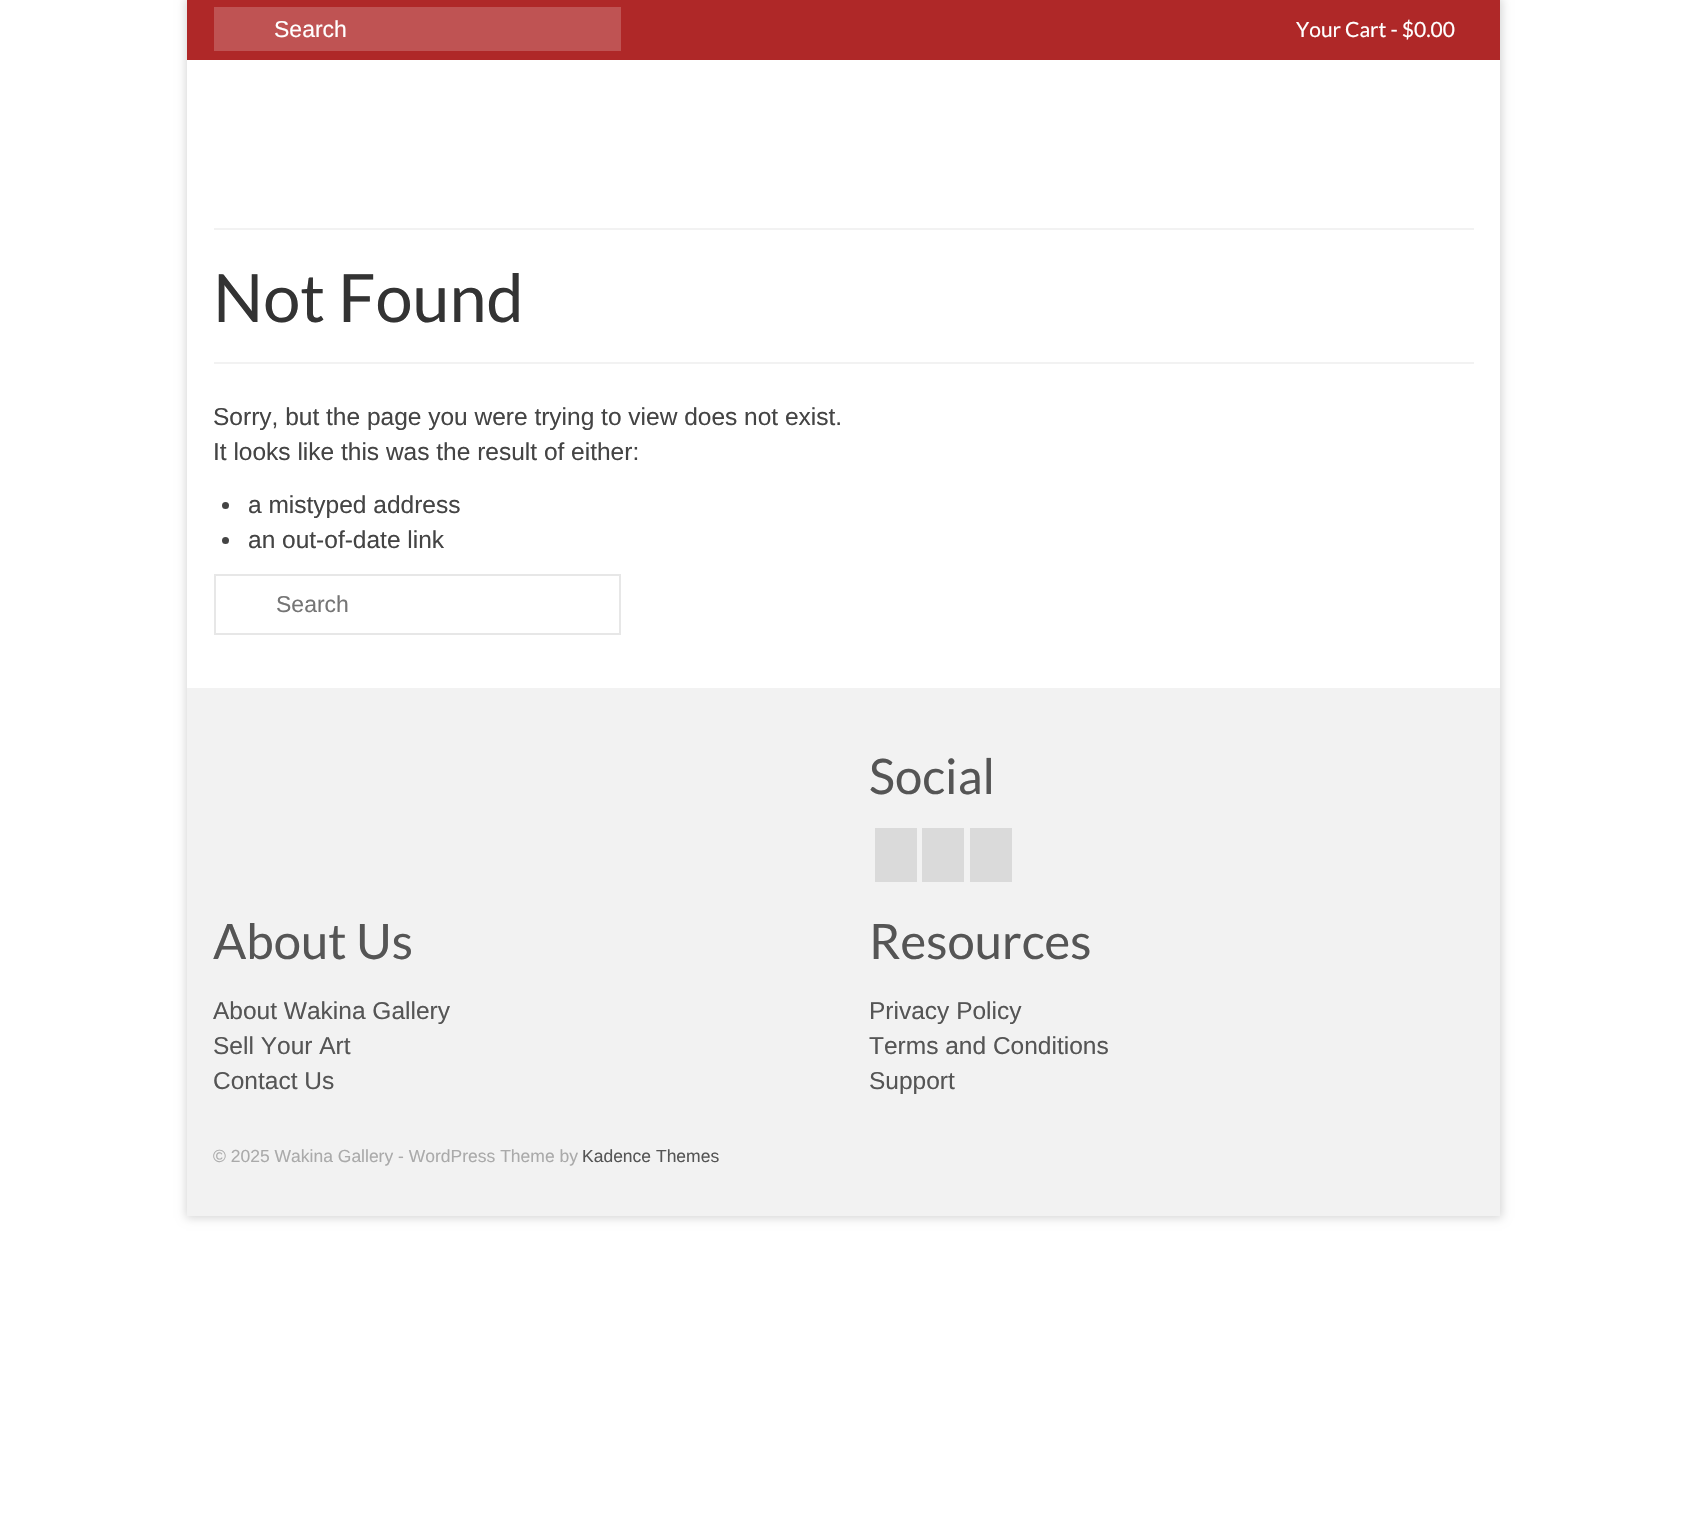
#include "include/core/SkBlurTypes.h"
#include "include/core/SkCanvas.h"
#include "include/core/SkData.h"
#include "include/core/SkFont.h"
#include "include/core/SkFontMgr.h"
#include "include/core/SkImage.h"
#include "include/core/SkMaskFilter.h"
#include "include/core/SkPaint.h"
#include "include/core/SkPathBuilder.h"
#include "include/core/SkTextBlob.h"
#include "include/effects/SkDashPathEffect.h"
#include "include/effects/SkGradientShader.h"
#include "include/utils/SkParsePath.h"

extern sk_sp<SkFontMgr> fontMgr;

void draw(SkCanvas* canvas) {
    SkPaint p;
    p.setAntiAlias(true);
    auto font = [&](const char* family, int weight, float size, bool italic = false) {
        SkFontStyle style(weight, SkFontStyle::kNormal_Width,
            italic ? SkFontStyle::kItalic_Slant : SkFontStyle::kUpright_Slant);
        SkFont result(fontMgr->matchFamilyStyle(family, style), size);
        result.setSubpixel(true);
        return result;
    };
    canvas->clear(0xFFFFFFFF);
    p.setColor(0x29000000);
    p.setMaskFilter(SkMaskFilter::MakeBlur(kNormal_SkBlurStyle, 4.5f));
    canvas->drawRect(SkRect::MakeLTRB(186, -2, 1502, 1218), p);
    p.setMaskFilter(nullptr);
    {
        const struct { float l, t, r, b; SkColor color; } items[] = {
            {187, 60, 1500, 688, 0xFFFFFFFF},
            {187, 0, 1500, 60, 0xFFAF2828},
            {214, 7, 621, 51, 0xFFBF5353},
        };
        for (auto [l, t, r, b, color] : items) {
            p.setColor(color);
            canvas->drawRect(SkRect::MakeLTRB(l, t, r, b), p);
        }
    }
    auto font1 = font("Liberation Sans", 400, 23);
    p.setColor(0xFFFFFFFF);
    canvas->drawString("Search", 274, 37, font1, p);
    auto font2 = font("Lato", 400, 21);
    canvas->drawString("Your Cart - $0.00", 1296, 37, font2, p);
    p.setColor(0xFFF2F2F2);
    canvas->drawRect(SkRect::MakeLTRB(214, 228, 1474, 230), p);
    canvas->drawRect(SkRect::MakeLTRB(214, 362, 1474, 364), p);
    auto font3 = font("Lato", 400, 66.5f);
    p.setColor(0xFF333333);
    canvas->drawString("Not Found", 213, 322, font3, p);
    auto font4 = font("Liberation Sans", 400, 24.5f);
    p.setColor(0xFF444444);
    canvas->drawString("Sorry, but the page you were trying to view does not exist.", 213, 425, font4, p);
    canvas->drawString("It looks like this was the result of either:", 213, 460, font4, p);
    canvas->drawCircle(225.5f, 505.5f, 3.5f, p);
    canvas->drawString("a mistyped address", 248, 513, font4, p);
    canvas->drawCircle(225.5f, 540.5f, 3.5f, p);
    canvas->drawString("an out-of-date link", 248, 548, font4, p);
    p.setStyle(SkPaint::kStroke_Style);
    p.setStrokeWidth(2);
    p.setColor(0xFFE7E7E7);
    canvas->drawRect(SkRect::MakeLTRB(215, 575, 620, 634), p);
    p.setStyle(SkPaint::kFill_Style);
    p.setColor(0xFF757575);
    canvas->drawString("Search", 276, 612, font1, p);
    p.setColor(0xFFF2F2F2);
    canvas->drawRect(SkRect::MakeLTRB(187, 688, 1500, 1216), p);
    auto font5 = font("Lato", 400, 49);
    p.setColor(0xFF555555);
    canvas->drawString("Social", 869, 794, font5, p);
    {
        const struct { float l, t, r, b; SkColor color; } items[] = {
            {875, 828, 917, 882, 0xFFDADADA},
            {922, 828, 964, 882, 0xFFDADADA},
            {970, 828, 1012, 882, 0xFFDADADA},
        };
        for (auto [l, t, r, b, color] : items) {
            p.setColor(color);
            canvas->drawRect(SkRect::MakeLTRB(l, t, r, b), p);
        }
    }
    p.setColor(0xFF555555);
    canvas->drawString("About Us", 213, 959, font5, p);
    {
        const struct { const char* s; float x, y; } items[] = {
            {"About Wakina Gallery", 213, 1019},
            {"Sell Your Art", 213, 1054},
            {"Contact Us", 213, 1089},
        };
        for (auto [s, x, y] : items) {
            canvas->drawString(s, x, y, font4, p);
        }
    }
    canvas->drawString("Resources", 869, 959, font5, p);
    {
        const struct { const char* s; float x, y; } items[] = {
            {"Privacy Policy", 869, 1019},
            {"Terms and Conditions", 869, 1054},
            {"Support", 869, 1089},
        };
        for (auto [s, x, y] : items) {
            canvas->drawString(s, x, y, font4, p);
        }
    }
    auto font6 = font("Liberation Sans", 400, 17.5f);
    p.setColor(0xFFAAAAAA);
    canvas->drawString("© 2025 Wakina Gallery - WordPress Theme by", 213, 1162, font6, p);
    p.setColor(0xFF555555);
    canvas->drawString("Kadence Themes", 582, 1162, font6, p);
}
